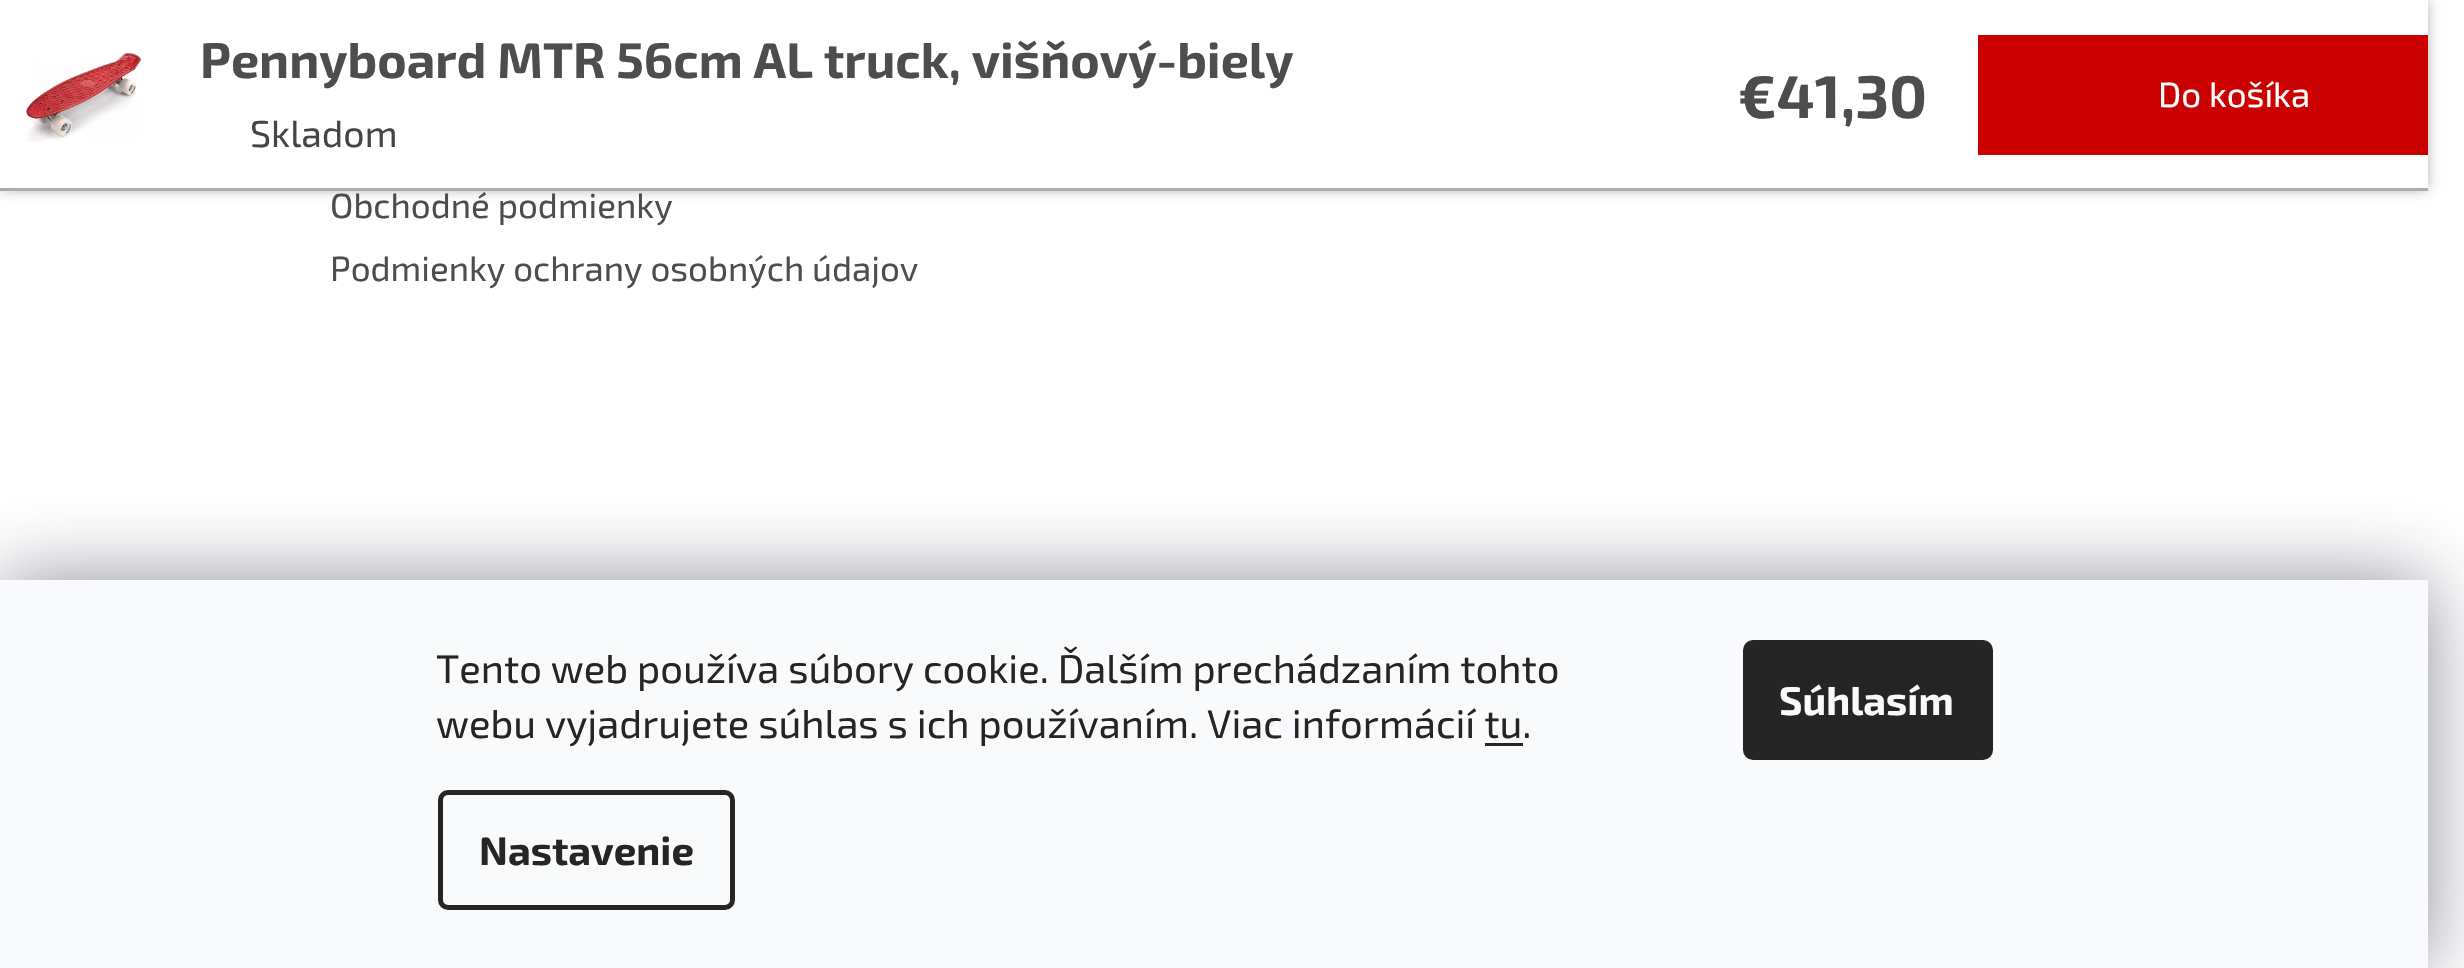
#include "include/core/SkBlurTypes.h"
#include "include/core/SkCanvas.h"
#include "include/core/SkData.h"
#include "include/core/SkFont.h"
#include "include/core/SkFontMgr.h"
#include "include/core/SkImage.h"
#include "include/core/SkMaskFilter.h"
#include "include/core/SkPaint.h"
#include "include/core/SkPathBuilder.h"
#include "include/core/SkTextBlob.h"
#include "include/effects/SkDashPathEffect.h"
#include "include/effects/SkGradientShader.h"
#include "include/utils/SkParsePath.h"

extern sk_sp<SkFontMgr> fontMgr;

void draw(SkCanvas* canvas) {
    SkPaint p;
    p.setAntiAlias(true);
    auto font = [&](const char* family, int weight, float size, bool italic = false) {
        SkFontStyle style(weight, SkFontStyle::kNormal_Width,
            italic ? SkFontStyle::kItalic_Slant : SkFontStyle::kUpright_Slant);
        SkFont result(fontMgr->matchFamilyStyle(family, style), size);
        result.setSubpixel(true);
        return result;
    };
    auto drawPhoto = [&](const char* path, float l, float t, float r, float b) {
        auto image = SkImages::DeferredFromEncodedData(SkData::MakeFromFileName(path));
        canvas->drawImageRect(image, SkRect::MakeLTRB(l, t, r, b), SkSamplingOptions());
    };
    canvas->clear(0xFFFFFFFF);
    p.setColor(0xFFB4B4B4);
    p.setMaskFilter(SkMaskFilter::MakeBlur(kNormal_SkBlurStyle, 6));
    canvas->drawRect(SkRect::MakeLTRB(0, 0, 2428, 190), p);
    p.setMaskFilter(nullptr);
    p.setColor(0xFFFFFFFF);
    canvas->drawRect(SkRect::MakeLTRB(0, 0, 2428, 188), p);
    p.setColor(0xFFAAAAAA);
    canvas->drawRect(SkRect::MakeLTRB(0, 188, 2428, 191), p);
    drawPhoto("media/1.png", 26, 53, 141, 142);
    auto font1 = font("Exo 2", 700, 50);
    p.setColor(0xFF4D4D4D);
    canvas->drawString("Pennyboard MTR 56cm AL truck, višňový-biely", 200, 78, font1, p);
    auto font2 = font("Exo 2", 400, 37.5f);
    p.setColor(0xFF454545);
    canvas->drawString("Skladom", 250, 147, font2, p);
    auto font3 = font("Exo 2", 700, 60);
    p.setColor(0xFF4D4D4D);
    canvas->drawString("€41,30", 1738, 118, font3, p);
    p.setColor(0xFFCB0000);
    canvas->drawRect(SkRect::MakeLTRB(1978, 35, 2428, 155), p);
    auto font4 = font("Exo 2", 400, 35);
    p.setColor(0xFFFFFFFF);
    canvas->drawString("Do košíka", 2158, 107, font4, p);
    p.setColor(0xFF4D4D4D);
    canvas->drawString("Obchodné podmienky", 330, 218, font4, p);
    canvas->drawString("Podmienky ochrany osobných údajov", 330, 281, font4, p);
    p.setColor(0x801B1939);
    p.setMaskFilter(SkMaskFilter::MakeBlur(kNormal_SkBlurStyle, 37.5f));
    canvas->drawRect(SkRect::MakeLTRB(0, 580, 2428, 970), p);
    p.setMaskFilter(nullptr);
    p.setColor(0xFFF8FAFB);
    canvas->drawRect(SkRect::MakeLTRB(0, 580, 2428, 968), p);
    auto font5 = font("Exo 2", 400, 40);
    p.setColor(0xFF252525);
    canvas->drawString("Tento web používa súbory cookie. Ďalším prechádzaním tohto", 436, 683, font5, p);
    canvas->drawString("webu vyjadrujete súhlas s ich používaním. Viac informácií tu.", 436, 738, font5, p);
    canvas->drawRect(SkRect::MakeLTRB(1485, 743, 1523, 746), p);
    p.setStyle(SkPaint::kStroke_Style);
    p.setStrokeWidth(5);
    canvas->drawRoundRect(SkRect::MakeLTRB(440.5f, 792.5f, 732.5f, 907.5f), 7.5f, 7.5f, p);
    auto font6 = font("Exo 2", 700, 40);
    p.setStyle(SkPaint::kFill_Style);
    canvas->drawString("Nastavenie", 479, 865, font6, p);
    canvas->drawRoundRect(SkRect::MakeLTRB(1743, 640, 1993, 760), 10, 10, p);
    p.setColor(0xFFF8FAFB);
    canvas->drawString("Súhlasím", 1779, 715, font6, p);
}
